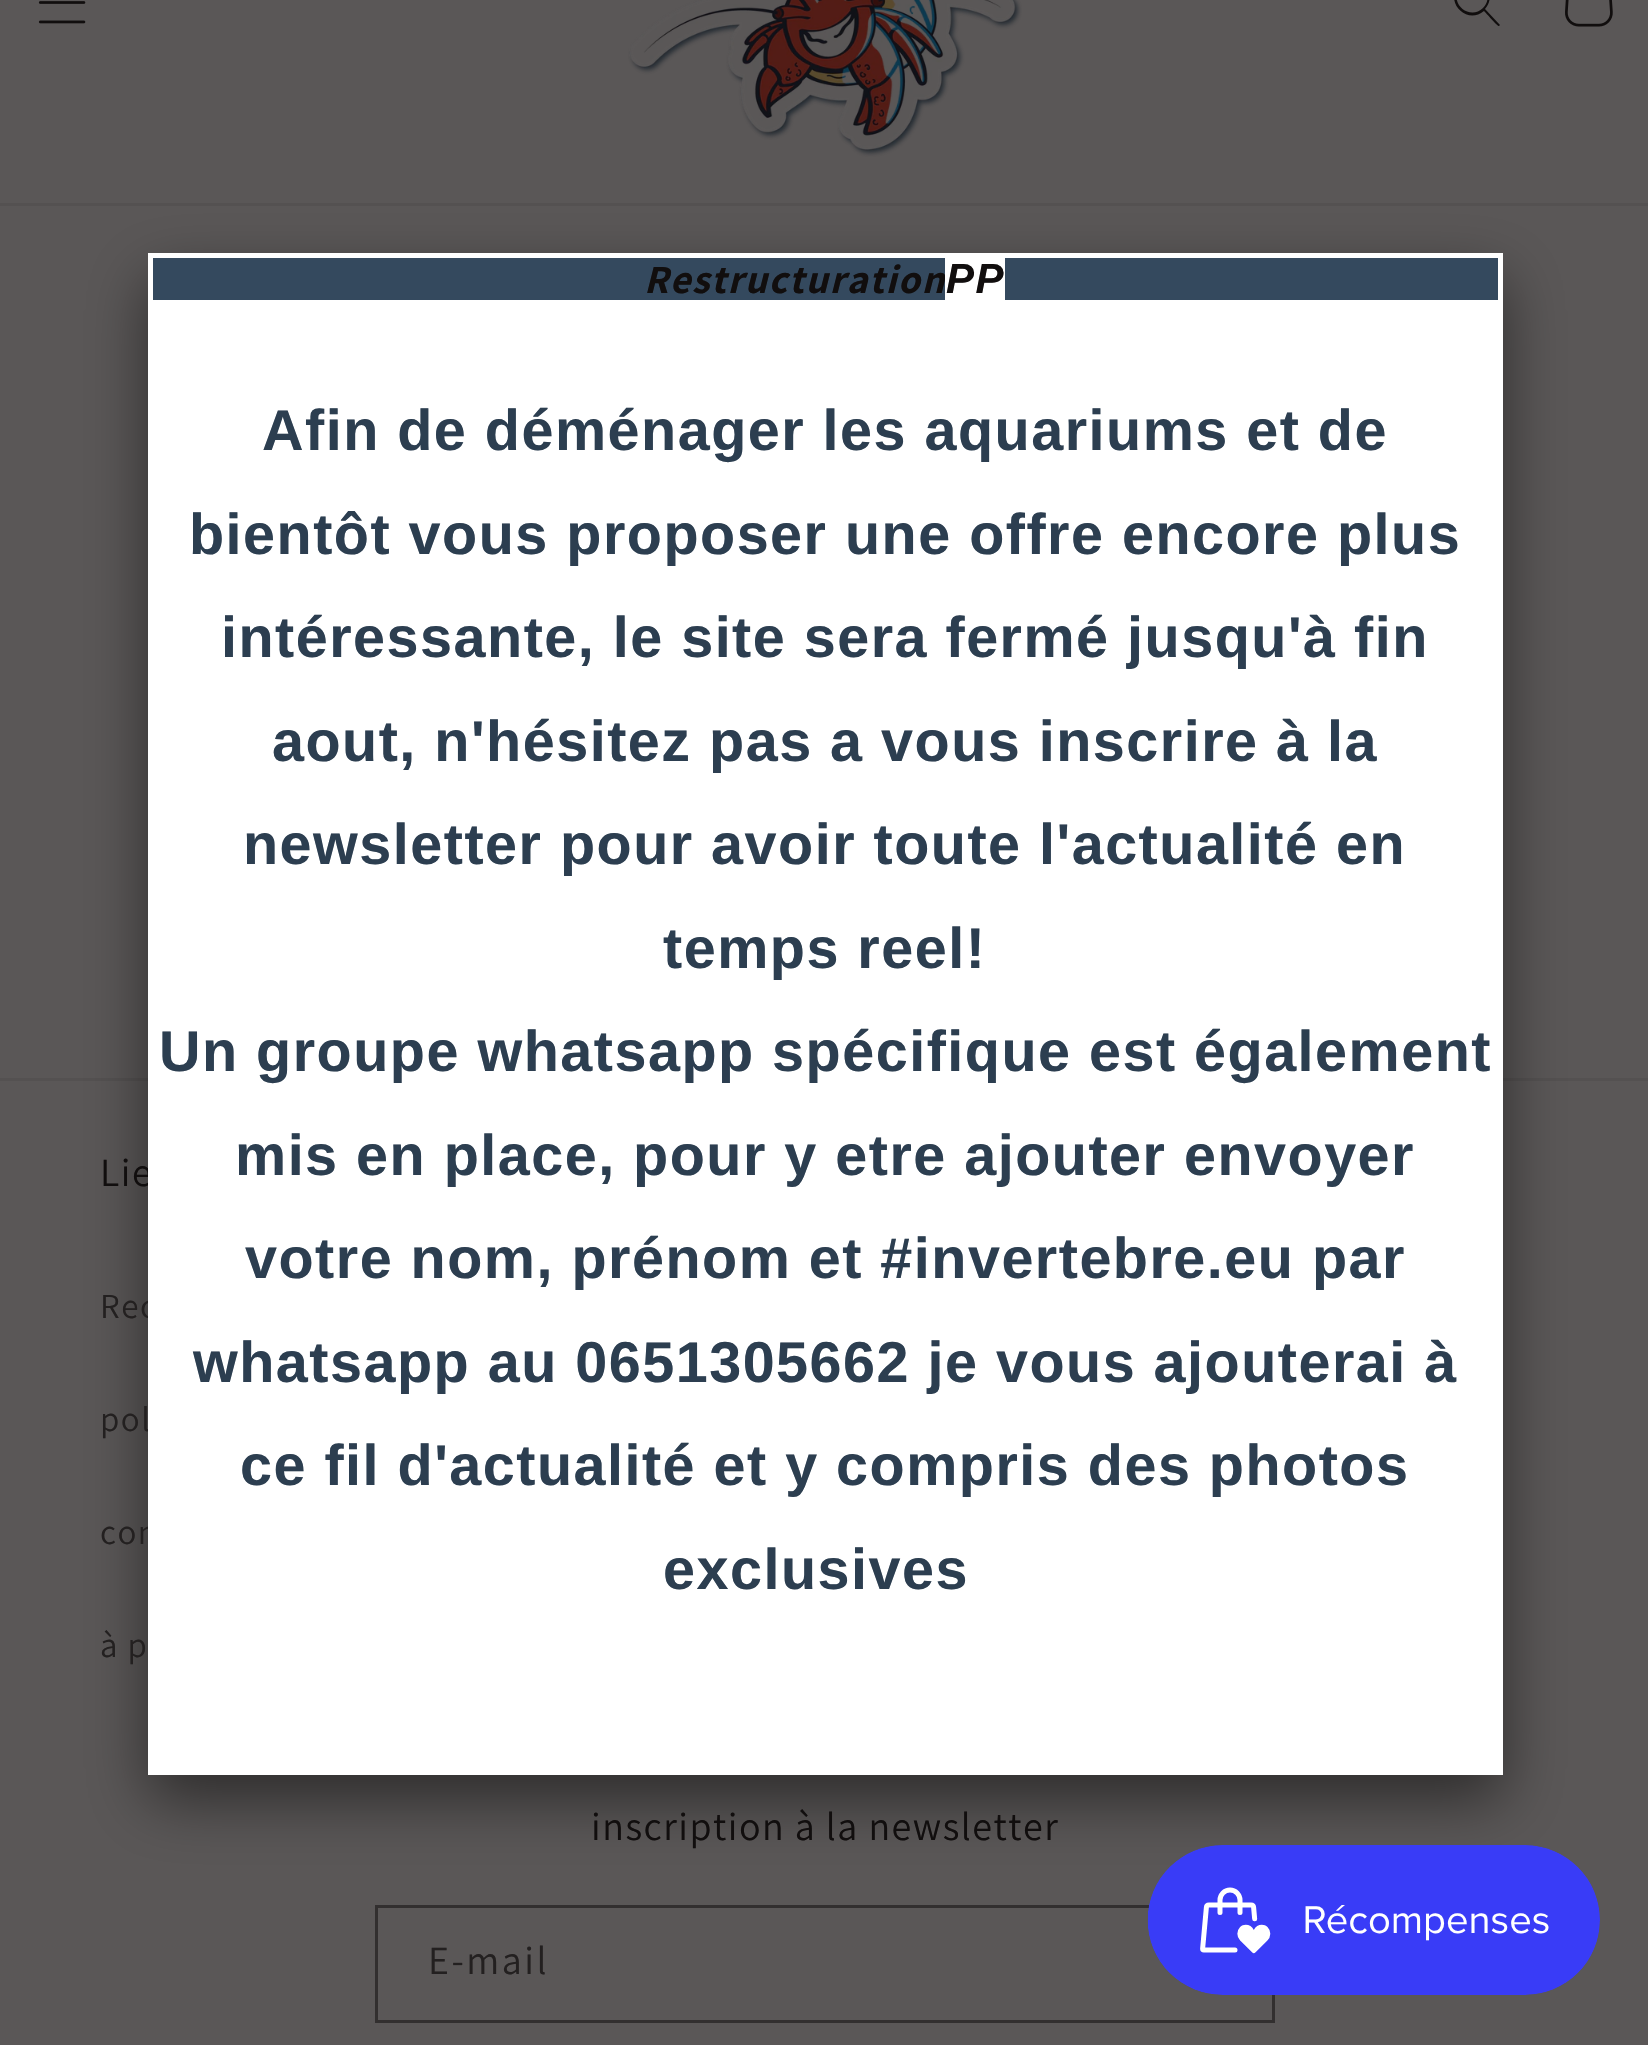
#include "include/core/SkBlurTypes.h"
#include "include/core/SkCanvas.h"
#include "include/core/SkData.h"
#include "include/core/SkFont.h"
#include "include/core/SkFontMgr.h"
#include "include/core/SkImage.h"
#include "include/core/SkMaskFilter.h"
#include "include/core/SkPaint.h"
#include "include/core/SkPathBuilder.h"
#include "include/core/SkTextBlob.h"
#include "include/effects/SkDashPathEffect.h"
#include "include/effects/SkGradientShader.h"
#include "include/utils/SkParsePath.h"

extern sk_sp<SkFontMgr> fontMgr;

void draw(SkCanvas* canvas) {
    SkPaint p;
    p.setAntiAlias(true);
    auto font = [&](const char* family, int weight, float size, bool italic = false) {
        SkFontStyle style(weight, SkFontStyle::kNormal_Width,
            italic ? SkFontStyle::kItalic_Slant : SkFontStyle::kUpright_Slant);
        SkFont result(fontMgr->matchFamilyStyle(family, style), size);
        result.setSubpixel(true);
        return result;
    };
    auto drawTracked = [&](const char* s, float x, float y, const SkFont& font, const SkPaint& ink, float letter, float word) {
        std::vector<SkGlyphID> glyphs(font.countText(s, strlen(s), SkTextEncoding::kUTF8));
        std::vector<float> xs(glyphs.size());
        font.textToGlyphs(s, strlen(s), SkTextEncoding::kUTF8, glyphs);
        font.getXPos(glyphs, xs, x);
        float extra = 0;
        for (size_t i = 0; i < glyphs.size(); i++) {
            xs[i] += extra;
            extra += letter + word * (glyphs[i] == font.unicharToGlyph(' '));
        }
        canvas->drawTextBlob(SkTextBlob::MakeFromPosHGlyphs(glyphs, xs, y, font), 0, 0, ink);
    };
    auto drawPhoto = [&](const char* path, float l, float t, float r, float b) {
        auto image = SkImages::DeferredFromEncodedData(SkData::MakeFromFileName(path));
        canvas->drawImageRect(image, SkRect::MakeLTRB(l, t, r, b), SkSamplingOptions());
    };
    canvas->clear(0xFF5A5757);
    p.setColor(0xFF545151);
    canvas->drawRect(SkRect::MakeLTRB(0, 203, 1648, 206), p);
    drawPhoto("media/1.png", 38, 1, 86, 24);
    drawPhoto("media/2.png", 628, 0, 1022, 157);
    p.setColor(0xFF110E0E);
    canvas->drawPath(SkPathBuilder(SkPathFillType::kEvenOdd).moveTo(1483, 8).cubicTo(1469, 22, 1447, 1, 1461, -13).cubicTo(1475, -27, 1497, -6, 1483, 8).close().moveTo(1484, 11).cubicTo(1466, 26, 1443, 0, 1460, -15).cubicTo(1476, -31, 1500, -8, 1485, 9).lineTo(1500, 25).lineTo(1499, 26).cubicTo(1498, 27, 1486, 13, 1484, 11).close().detach(), p);
    drawPhoto("media/3.png", 1565, 0, 1613, 27);
    p.setColor(0xFF545151);
    canvas->drawRect(SkRect::MakeLTRB(0, 1078, 1648, 1081), p);
    p.setColor(0x80000000);
    p.setMaskFilter(SkMaskFilter::MakeBlur(kNormal_SkBlurStyle, 31));
    canvas->drawRoundRect(SkRect::MakeLTRB(148, 278, 1503, 1800), 10, 10, p);
    p.setMaskFilter(nullptr);
    auto font1 = font("Assistant", 400, 40);
    p.setColor(0xFF110E0E);
    drawTracked("Lie", 100, 1186, font1, p, 1.5f, 0);
    auto font2 = font("Assistant", 400, 35);
    p.setColor(0xFF232020);
    {
        const struct { const char* s; float x, y; } items[] = {
            {"Rec", 100, 1318},
            {"pol", 100, 1431},
            {"con", 100, 1544},
        };
        for (auto [s, x, y] : items) {
            drawTracked(s, x, y, font2, p, 1.5f, 0);
        }
    }
    p.setColor(0xFFFFFFFF);
    canvas->drawRect(SkRect::MakeLTRB(148, 253, 1503, 1775), p);
    p.setColor(0xFF34495E);
    canvas->drawRect(SkRect::MakeLTRB(153, 258, 1498, 300), p);
    auto font3 = font("Assistant", 700, 40, true);
    p.setColor(0xFF110E0E);
    drawTracked("Restructuration", 644, 293, font3, p, 1.5f, 0);
    p.setColor(0xFFFFFFFF);
    canvas->drawRect(SkRect::MakeLTRB(945, 258, 1005, 300), p);
    auto font4 = font("Liberation Sans", 700, 42, true);
    p.setColor(0xFF110E0E);
    drawTracked("PP", 946, 293, font4, p, 1.5f, 0);
    auto font5 = font("Liberation Sans", 700, 57.5f);
    p.setColor(0xFF2C3E50);
    {
        const struct { const char* s; float x, y; } items[] = {
            {"Afin de déménager les aquariums et de", 262, 450},
            {"bientôt vous proposer une offre encore plus", 189, 554},
            {"intéressante, le site sera fermé jusqu'à fin", 221, 657},
            {"aout, n'hésitez pas a vous inscrire à la", 272, 761},
            {"newsletter pour avoir toute l'actualité en", 243, 864},
            {"temps reel!", 663, 968},
            {"Un groupe whatsapp spécifique est également", 159, 1071},
            {"mis en place, pour y etre ajouter envoyer", 235, 1175},
            {"votre nom, prénom et #invertebre.eu par", 245, 1278},
            {"whatsapp au 0651305662 je vous ajouterai à", 193, 1382},
            {"ce fil d'actualité et y compris des photos", 240, 1485},
            {"exclusives", 663, 1589},
        };
        for (auto [s, x, y] : items) {
            drawTracked(s, x, y, font5, p, 1.5f, 0);
        }
    }
    p.setColor(0xFF232020);
    drawTracked("à p", 100, 1657, font2, p, 1.5f, 0);
    p.setColor(0xFF110E0E);
    drawTracked("inscription à la newsletter", 591, 1840, font1, p, 1.5f, 0);
    p.setStyle(SkPaint::kStroke_Style);
    p.setStrokeWidth(3);
    p.setColor(0xFF322F2F);
    canvas->drawRect(SkRect::MakeLTRB(376.5f, 1906.5f, 1273.5f, 2021.5f), p);
    p.setStyle(SkPaint::kFill_Style);
    p.setColor(0xFF232020);
    drawTracked("E-mail", 428, 1974, font1, p, 2.5f, 0);
    drawPhoto("media/4.png", 1147, 1845, 1600, 1995);
}
